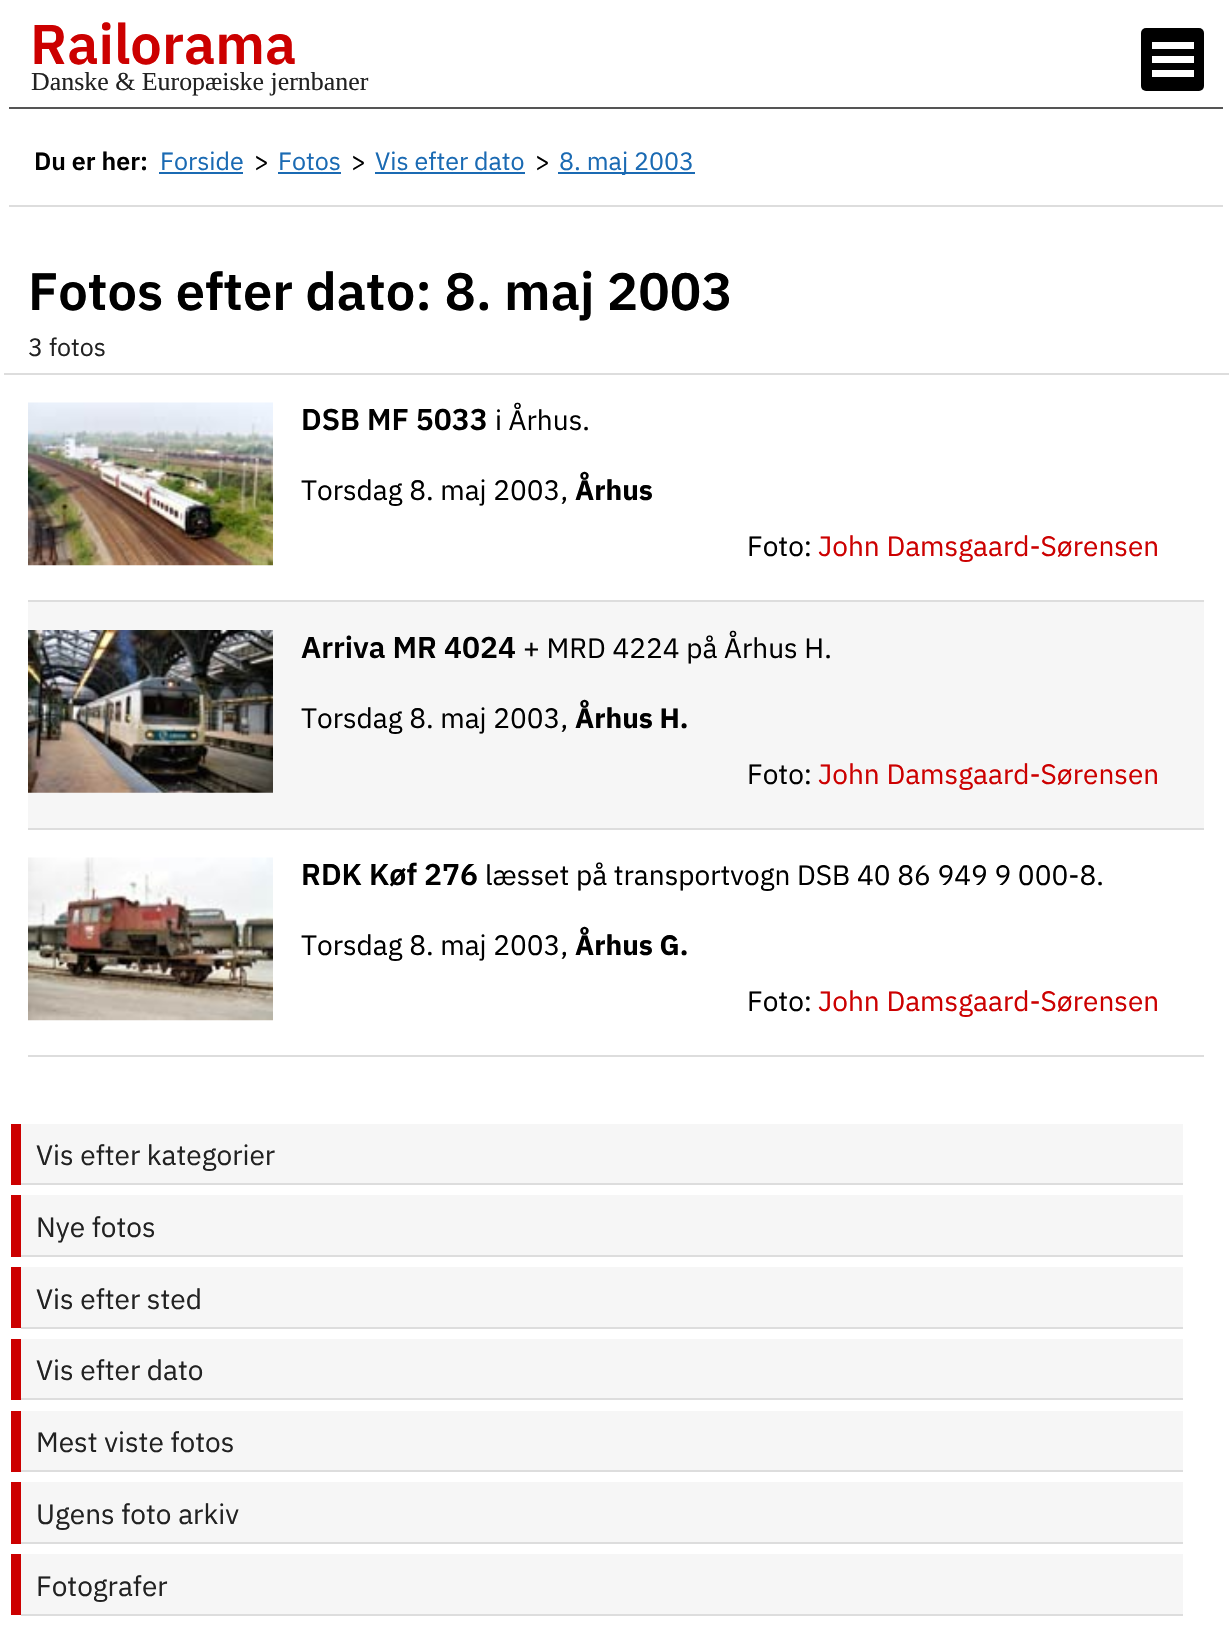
#include "include/core/SkBlurTypes.h"
#include "include/core/SkCanvas.h"
#include "include/core/SkData.h"
#include "include/core/SkFont.h"
#include "include/core/SkFontMgr.h"
#include "include/core/SkImage.h"
#include "include/core/SkMaskFilter.h"
#include "include/core/SkPaint.h"
#include "include/core/SkPathBuilder.h"
#include "include/core/SkTextBlob.h"
#include "include/effects/SkDashPathEffect.h"
#include "include/effects/SkGradientShader.h"
#include "include/utils/SkParsePath.h"

extern sk_sp<SkFontMgr> fontMgr;

void draw(SkCanvas* canvas) {
    SkPaint p;
    p.setAntiAlias(true);
    auto font = [&](const char* family, int weight, float size, bool italic = false) {
        SkFontStyle style(weight, SkFontStyle::kNormal_Width,
            italic ? SkFontStyle::kItalic_Slant : SkFontStyle::kUpright_Slant);
        SkFont result(fontMgr->matchFamilyStyle(family, style), size);
        result.setSubpixel(true);
        return result;
    };
    auto drawPhoto = [&](const char* path, float l, float t, float r, float b) {
        auto image = SkImages::DeferredFromEncodedData(SkData::MakeFromFileName(path));
        canvas->drawImageRect(image, SkRect::MakeLTRB(l, t, r, b), SkSamplingOptions());
    };
    canvas->clear(0xFFFFFFFF);
    p.setColor(0xFF555555);
    canvas->drawRect(SkRect::MakeLTRB(9, 107, 1223, 109), p);
    auto font1 = font("IBM Plex Sans", 600, 56);
    p.setColor(0xFFCC0000);
    canvas->drawString("Railorama", 30, 64, font1, p);
    auto font2 = font("Liberation Serif", 400, 25.9f);
    p.setColor(0xFF222222);
    canvas->drawString("Danske & Europæiske jernbaner", 31, 90, font2, p);
    p.setColor(0xFF000000);
    canvas->drawRoundRect(SkRect::MakeLTRB(1141, 28, 1204, 91), 5, 5, p);
    {
        const struct { float l, t, r, b; SkColor color; } items[] = {
            {1152, 56, 1194, 63, 0xFFFFFFFF},
            {1152, 42, 1194, 49, 0xFFFFFFFF},
            {1152, 70, 1194, 77, 0xFFFFFFFF},
            {9, 205, 1223, 207, 0xFFDDDDDD},
        };
        for (auto [l, t, r, b, color] : items) {
            p.setColor(color);
            canvas->drawRect(SkRect::MakeLTRB(l, t, r, b), p);
        }
    }
    auto font3 = font("IBM Plex Sans", 600, 25);
    p.setColor(0xFF000000);
    canvas->drawString("Du er her:", 34, 170, font3, p);
    auto font4 = font("IBM Plex Sans", 400, 25);
    p.setColor(0xFF1A6AB3);
    canvas->drawString("Forside", 160, 170, font4, p);
    canvas->drawRect(SkRect::MakeLTRB(159, 172, 243, 174), p);
    p.setColor(0xFF000000);
    canvas->drawString(">", 254, 170, font4, p);
    p.setColor(0xFF1A6AB3);
    canvas->drawString("Fotos", 278, 170, font4, p);
    canvas->drawRect(SkRect::MakeLTRB(278, 172, 341, 174), p);
    p.setColor(0xFF000000);
    canvas->drawString(">", 351, 170, font4, p);
    p.setColor(0xFF1A6AB3);
    canvas->drawString("Vis efter dato", 375, 170, font4, p);
    canvas->drawRect(SkRect::MakeLTRB(375, 172, 525, 174), p);
    p.setColor(0xFF000000);
    canvas->drawString(">", 535, 170, font4, p);
    p.setColor(0xFF1A6AB3);
    canvas->drawRect(SkRect::MakeLTRB(558, 172, 695, 174), p);
    canvas->drawString("8. maj 2003", 559, 170, font4, p);
    auto font5 = font("IBM Plex Sans", 600, 52.5f);
    p.setColor(0xFF000000);
    canvas->drawString("Fotos efter dato: 8. maj 2003", 28, 310, font5, p);
    p.setColor(0xFFDDDDDD);
    canvas->drawRect(SkRect::MakeLTRB(4, 373, 1229, 375), p);
    p.setColor(0xFF222222);
    canvas->drawString("3 fotos", 28, 356, font4, p);
    p.setColor(0xFFDDDDDD);
    canvas->drawRect(SkRect::MakeLTRB(28, 600, 1204, 602), p);
    drawPhoto("media/1.png", 28, 402, 273, 566);
    auto font6 = font("IBM Plex Sans", 600, 30);
    p.setColor(0xFF000000);
    canvas->drawString("DSB MF 5033", 301, 430, font6, p);
    auto font7 = font("IBM Plex Sans", 400, 28);
    canvas->drawString("i Århus.", 495, 430, font7, p);
    canvas->drawString("Torsdag 8. maj 2003,", 301, 500, font7, p);
    auto font8 = font("IBM Plex Sans", 700, 28);
    canvas->drawString("Århus", 575, 500, font8, p);
    canvas->drawString("Foto:", 747, 556, font7, p);
    p.setColor(0xFFCC0000);
    canvas->drawString("John Damsgaard-Sørensen", 818, 556, font7, p);
    p.setColor(0xFFF6F6F6);
    canvas->drawRect(SkRect::MakeLTRB(28, 602, 1204, 828), p);
    p.setColor(0xFFDDDDDD);
    canvas->drawRect(SkRect::MakeLTRB(28, 828, 1204, 830), p);
    drawPhoto("media/2.png", 28, 630, 273, 793);
    p.setColor(0xFF000000);
    canvas->drawString("Arriva MR 4024", 301, 658, font6, p);
    canvas->drawString("+ MRD 4224 på Århus H.", 523, 658, font7, p);
    canvas->drawString("Torsdag 8. maj 2003,", 301, 728, font7, p);
    canvas->drawString("Århus H.", 575, 728, font8, p);
    canvas->drawString("Foto:", 747, 784, font7, p);
    p.setColor(0xFFCC0000);
    canvas->drawString("John Damsgaard-Sørensen", 818, 784, font7, p);
    p.setColor(0xFFDDDDDD);
    canvas->drawRect(SkRect::MakeLTRB(28, 1055, 1204, 1057), p);
    drawPhoto("media/3.png", 28, 857, 273, 1021);
    p.setColor(0xFF000000);
    canvas->drawString("RDK Køf 276", 301, 885, font6, p);
    canvas->drawString("læsset på transportvogn DSB 40 86 949 9 000-8.", 485, 885, font7, p);
    canvas->drawString("Torsdag 8. maj 2003,", 301, 955, font7, p);
    canvas->drawString("Århus G.", 575, 955, font8, p);
    canvas->drawString("Foto:", 747, 1011, font7, p);
    p.setColor(0xFFCC0000);
    canvas->drawString("John Damsgaard-Sørensen", 818, 1011, font7, p);
    {
        const struct { float l, t, r, b; SkColor color; } items[] = {
            {11, 1124, 21, 1185, 0xFFCC0000},
            {21, 1124, 1183, 1183, 0xFFF6F6F6},
            {21, 1183, 1183, 1185, 0xFFDDDDDD},
        };
        for (auto [l, t, r, b, color] : items) {
            p.setColor(color);
            canvas->drawRect(SkRect::MakeLTRB(l, t, r, b), p);
        }
    }
    p.setColor(0xFF222222);
    canvas->drawString("Vis efter kategorier", 36, 1165, font7, p);
    {
        const struct { float l, t, r, b; SkColor color; } items[] = {
            {11, 1195, 21, 1257, 0xFFCC0000},
            {21, 1195, 1183, 1255, 0xFFF6F6F6},
            {21, 1255, 1183, 1257, 0xFFDDDDDD},
        };
        for (auto [l, t, r, b, color] : items) {
            p.setColor(color);
            canvas->drawRect(SkRect::MakeLTRB(l, t, r, b), p);
        }
    }
    p.setColor(0xFF222222);
    canvas->drawString("Nye fotos", 36, 1237, font7, p);
    {
        const struct { float l, t, r, b; SkColor color; } items[] = {
            {11, 1267, 21, 1328, 0xFFCC0000},
            {21, 1267, 1183, 1327, 0xFFF6F6F6},
            {21, 1327, 1183, 1329, 0xFFDDDDDD},
        };
        for (auto [l, t, r, b, color] : items) {
            p.setColor(color);
            canvas->drawRect(SkRect::MakeLTRB(l, t, r, b), p);
        }
    }
    p.setColor(0xFF222222);
    canvas->drawString("Vis efter sted", 36, 1309, font7, p);
    {
        const struct { float l, t, r, b; SkColor color; } items[] = {
            {11, 1339, 21, 1400, 0xFFCC0000},
            {21, 1339, 1183, 1398, 0xFFF6F6F6},
            {21, 1398, 1183, 1400, 0xFFDDDDDD},
        };
        for (auto [l, t, r, b, color] : items) {
            p.setColor(color);
            canvas->drawRect(SkRect::MakeLTRB(l, t, r, b), p);
        }
    }
    p.setColor(0xFF222222);
    canvas->drawString("Vis efter dato", 36, 1380, font7, p);
    {
        const struct { float l, t, r, b; SkColor color; } items[] = {
            {11, 1411, 21, 1472, 0xFFCC0000},
            {21, 1411, 1183, 1470, 0xFFF6F6F6},
            {21, 1470, 1183, 1472, 0xFFDDDDDD},
        };
        for (auto [l, t, r, b, color] : items) {
            p.setColor(color);
            canvas->drawRect(SkRect::MakeLTRB(l, t, r, b), p);
        }
    }
    p.setColor(0xFF222222);
    canvas->drawString("Mest viste fotos", 36, 1452, font7, p);
    {
        const struct { float l, t, r, b; SkColor color; } items[] = {
            {11, 1482, 21, 1544, 0xFFCC0000},
            {21, 1482, 1183, 1542, 0xFFF6F6F6},
            {21, 1542, 1183, 1544, 0xFFDDDDDD},
        };
        for (auto [l, t, r, b, color] : items) {
            p.setColor(color);
            canvas->drawRect(SkRect::MakeLTRB(l, t, r, b), p);
        }
    }
    p.setColor(0xFF222222);
    canvas->drawString("Ugens foto arkiv", 36, 1524, font7, p);
    {
        const struct { float l, t, r, b; SkColor color; } items[] = {
            {11, 1554, 21, 1615, 0xFFCC0000},
            {21, 1554, 1183, 1614, 0xFFF6F6F6},
            {21, 1614, 1183, 1616, 0xFFDDDDDD},
        };
        for (auto [l, t, r, b, color] : items) {
            p.setColor(color);
            canvas->drawRect(SkRect::MakeLTRB(l, t, r, b), p);
        }
    }
    p.setColor(0xFF222222);
    canvas->drawString("Fotografer", 36, 1596, font7, p);
}
